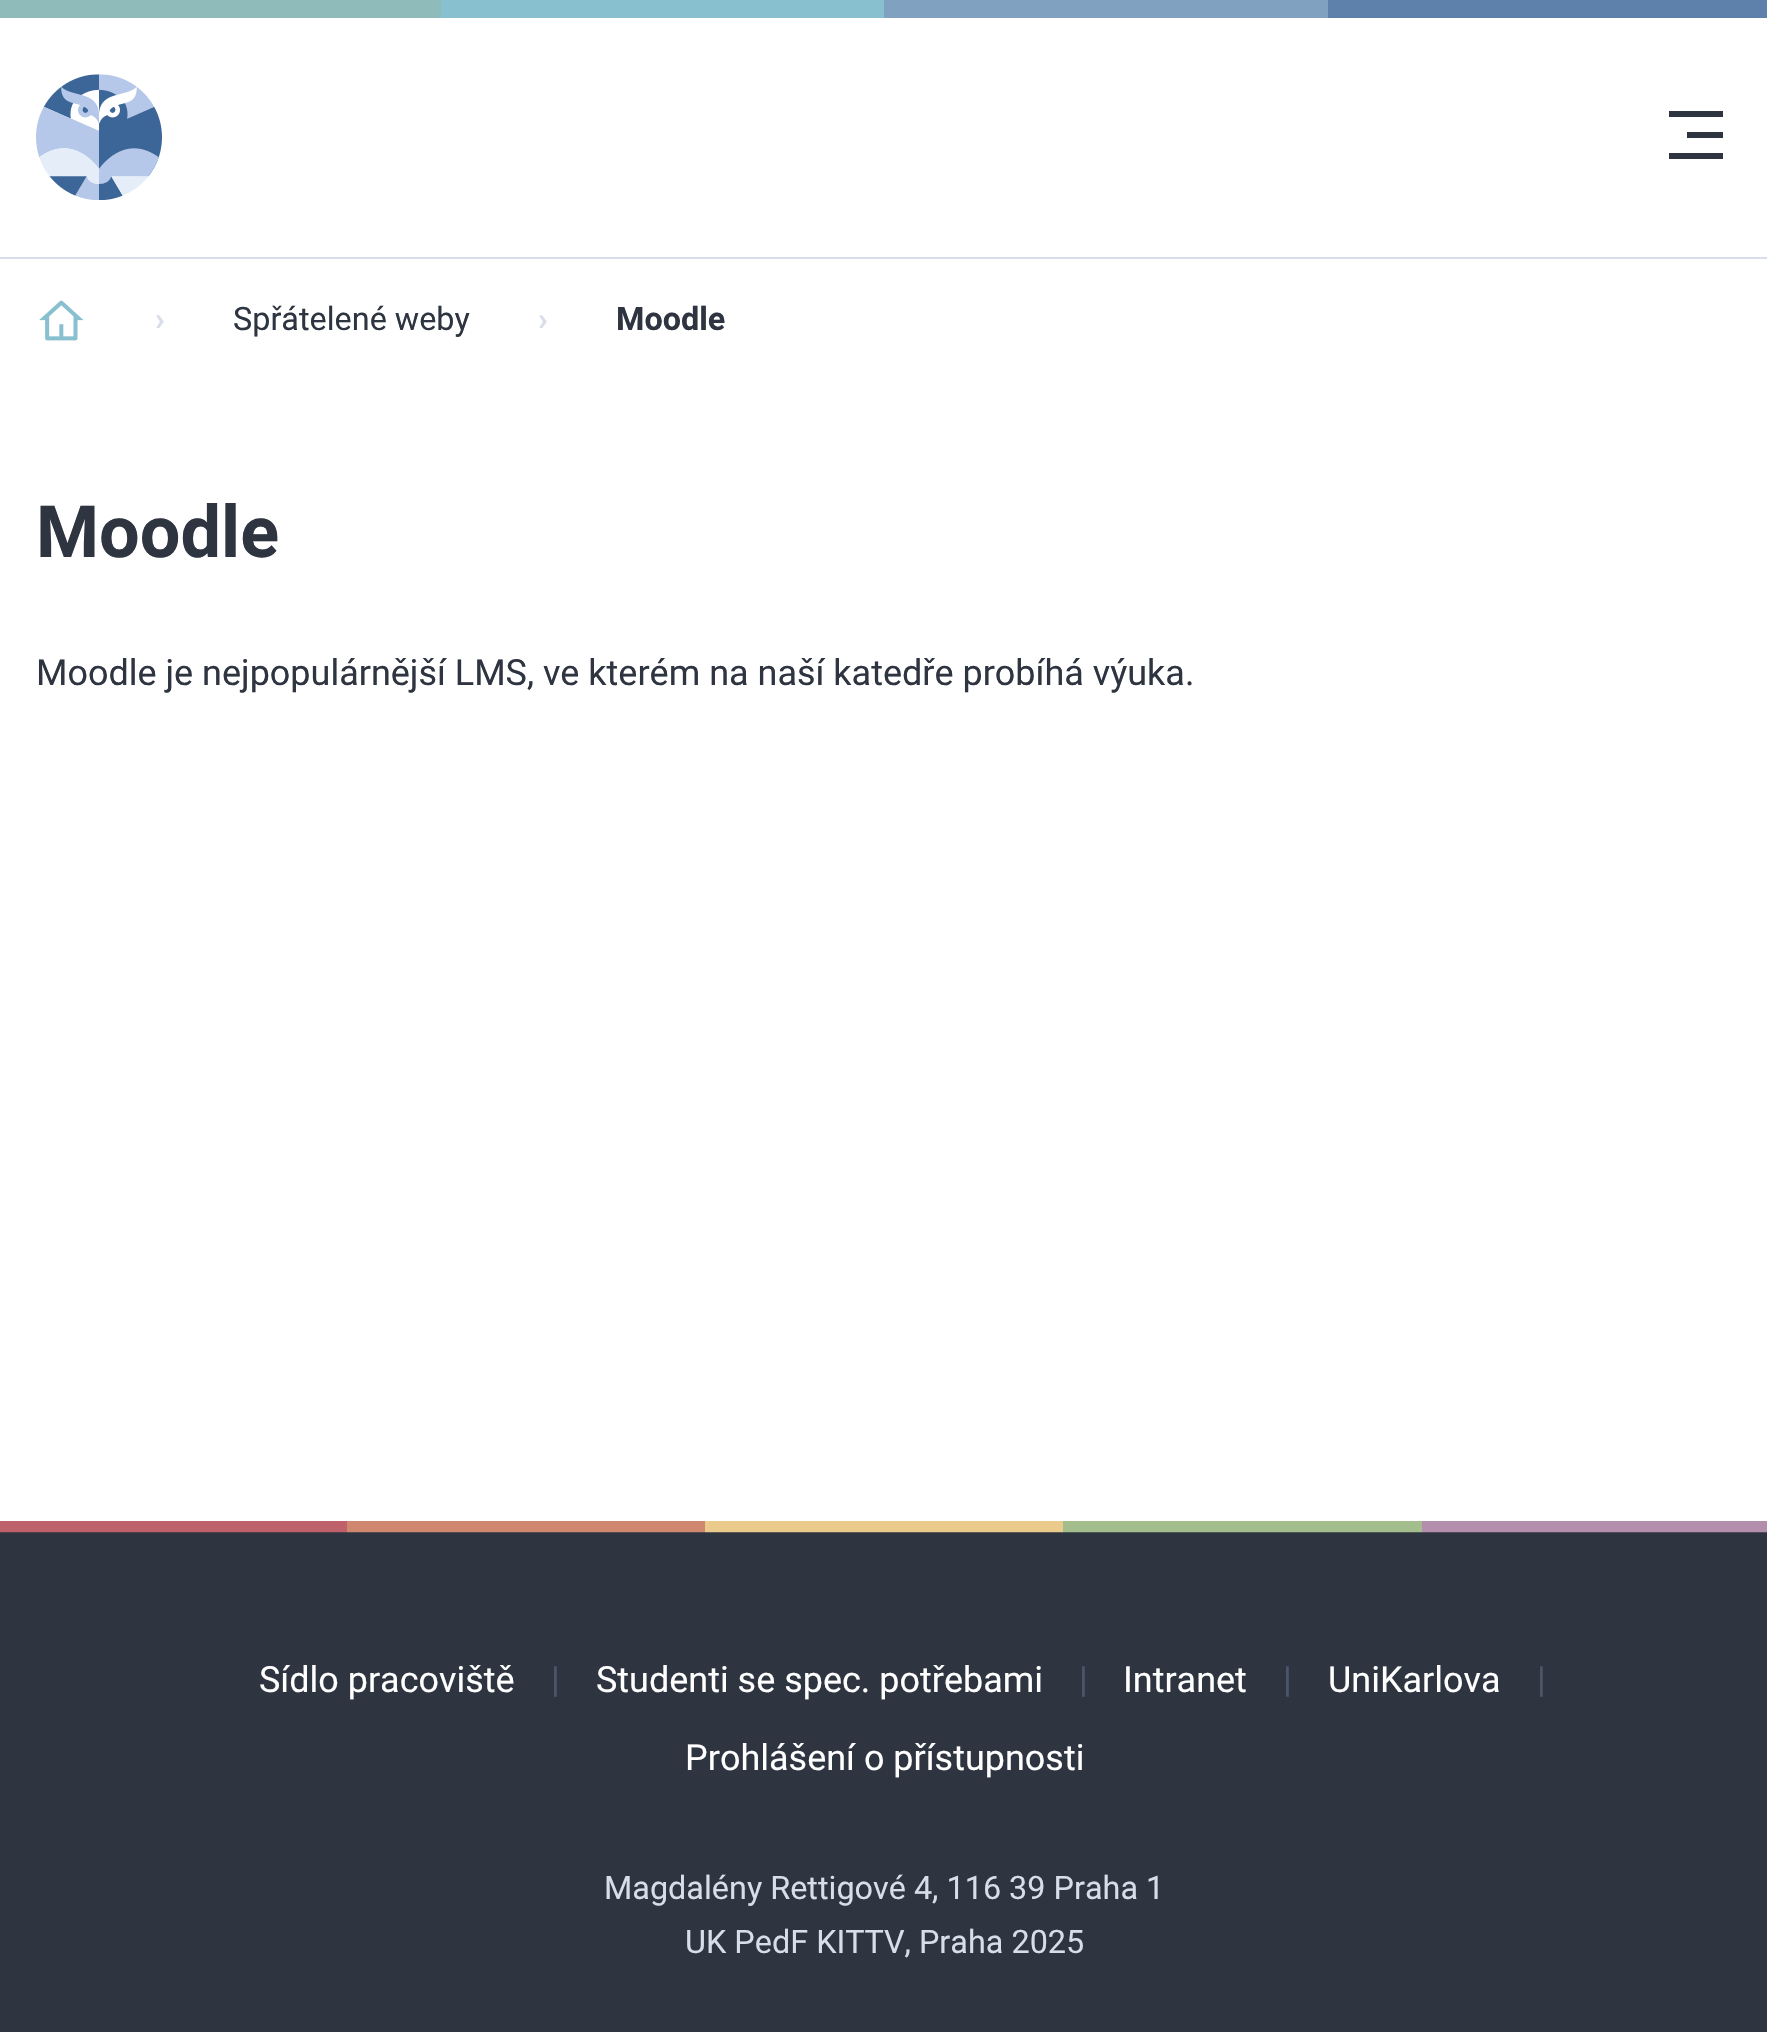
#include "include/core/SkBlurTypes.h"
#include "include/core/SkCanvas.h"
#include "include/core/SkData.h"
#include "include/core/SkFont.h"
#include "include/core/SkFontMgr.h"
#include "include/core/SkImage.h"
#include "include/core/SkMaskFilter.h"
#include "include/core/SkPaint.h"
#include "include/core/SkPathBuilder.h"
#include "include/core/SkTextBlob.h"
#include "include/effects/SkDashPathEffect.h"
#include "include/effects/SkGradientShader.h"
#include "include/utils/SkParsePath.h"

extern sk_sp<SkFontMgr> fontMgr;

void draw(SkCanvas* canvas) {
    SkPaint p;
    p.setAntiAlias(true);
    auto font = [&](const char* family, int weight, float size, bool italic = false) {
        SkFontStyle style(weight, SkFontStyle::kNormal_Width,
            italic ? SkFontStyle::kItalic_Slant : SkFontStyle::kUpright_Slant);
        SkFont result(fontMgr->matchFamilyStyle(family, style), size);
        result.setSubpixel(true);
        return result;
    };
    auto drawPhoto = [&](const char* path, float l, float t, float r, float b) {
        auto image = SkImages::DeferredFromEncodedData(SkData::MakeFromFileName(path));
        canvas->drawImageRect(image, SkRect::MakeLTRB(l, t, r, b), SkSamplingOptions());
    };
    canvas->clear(0xFFFFFFFF);
    drawPhoto("media/1.png", 0, 0, 1767, 18);
    drawPhoto("media/2.png", 36, 74, 162, 200);
    p.setColor(0xFF2E3440);
    canvas->drawPath(SkPathBuilder().moveTo(1669, 111).lineTo(1723, 111).lineTo(1723, 117).lineTo(1669, 117).close().moveTo(1687, 132).lineTo(1723, 132).lineTo(1723, 138).lineTo(1687, 138).close().moveTo(1669, 153).lineTo(1723, 153).lineTo(1723, 159).lineTo(1669, 159).close().detach(), p);
    p.setColor(0xFFD8DEE9);
    canvas->drawRect(SkRect::MakeLTRB(0, 257, 1767, 259), p);
    drawPhoto("media/3.png", 39, 300, 84, 341);
    auto font1 = font("Roboto", 700, 32.4f);
    canvas->drawString("›", 155, 330, font1, p);
    auto font2 = font("Roboto", 400, 32.4f);
    p.setColor(0xFF2E3440);
    canvas->drawString("Spřátelené weby", 233, 330, font2, p);
    p.setColor(0xFFD8DEE9);
    canvas->drawString("›", 538, 330, font1, p);
    p.setColor(0xFF2E3440);
    canvas->drawString("Moodle", 616, 330, font1, p);
    auto font3 = font("Roboto", 700, 72);
    canvas->drawString("Moodle", 36, 557, font3, p);
    auto font4 = font("Roboto", 400, 36);
    canvas->drawString("Moodle je nejpopulárnější LMS, ve kterém na naší katedře probíhá výuka.", 36, 685, font4, p);
    canvas->drawRect(SkRect::MakeLTRB(0, 1532, 1767, 2032), p);
    drawPhoto("media/4.png", 0, 1521, 1767, 1533);
    p.setColor(0xFFFFFFFF);
    canvas->drawString("Sídlo pracoviště", 259, 1692, font4, p);
    p.setColor(0xFF4C566A);
    canvas->drawString("|", 551, 1692, font4, p);
    p.setColor(0xFFFFFFFF);
    canvas->drawString("Studenti se spec. potřebami", 596, 1692, font4, p);
    p.setColor(0xFF4C566A);
    canvas->drawString("|", 1079, 1692, font4, p);
    p.setColor(0xFFFFFFFF);
    canvas->drawString("Intranet", 1123, 1692, font4, p);
    p.setColor(0xFF4C566A);
    canvas->drawString("|", 1283, 1692, font4, p);
    p.setColor(0xFFFFFFFF);
    canvas->drawString("UniKarlova", 1328, 1692, font4, p);
    p.setColor(0xFF4C566A);
    canvas->drawString("|", 1537, 1692, font4, p);
    p.setColor(0xFFFFFFFF);
    canvas->drawString("Prohlášení o přístupnosti", 685, 1770, font4, p);
    p.setColor(0xFFD8DEE9);
    canvas->drawString("Magdalény Rettigové 4, 116 39 Praha 1", 604, 1899, font2, p);
    canvas->drawString("UK PedF KITTV, Praha 2025", 685, 1953, font2, p);
}
